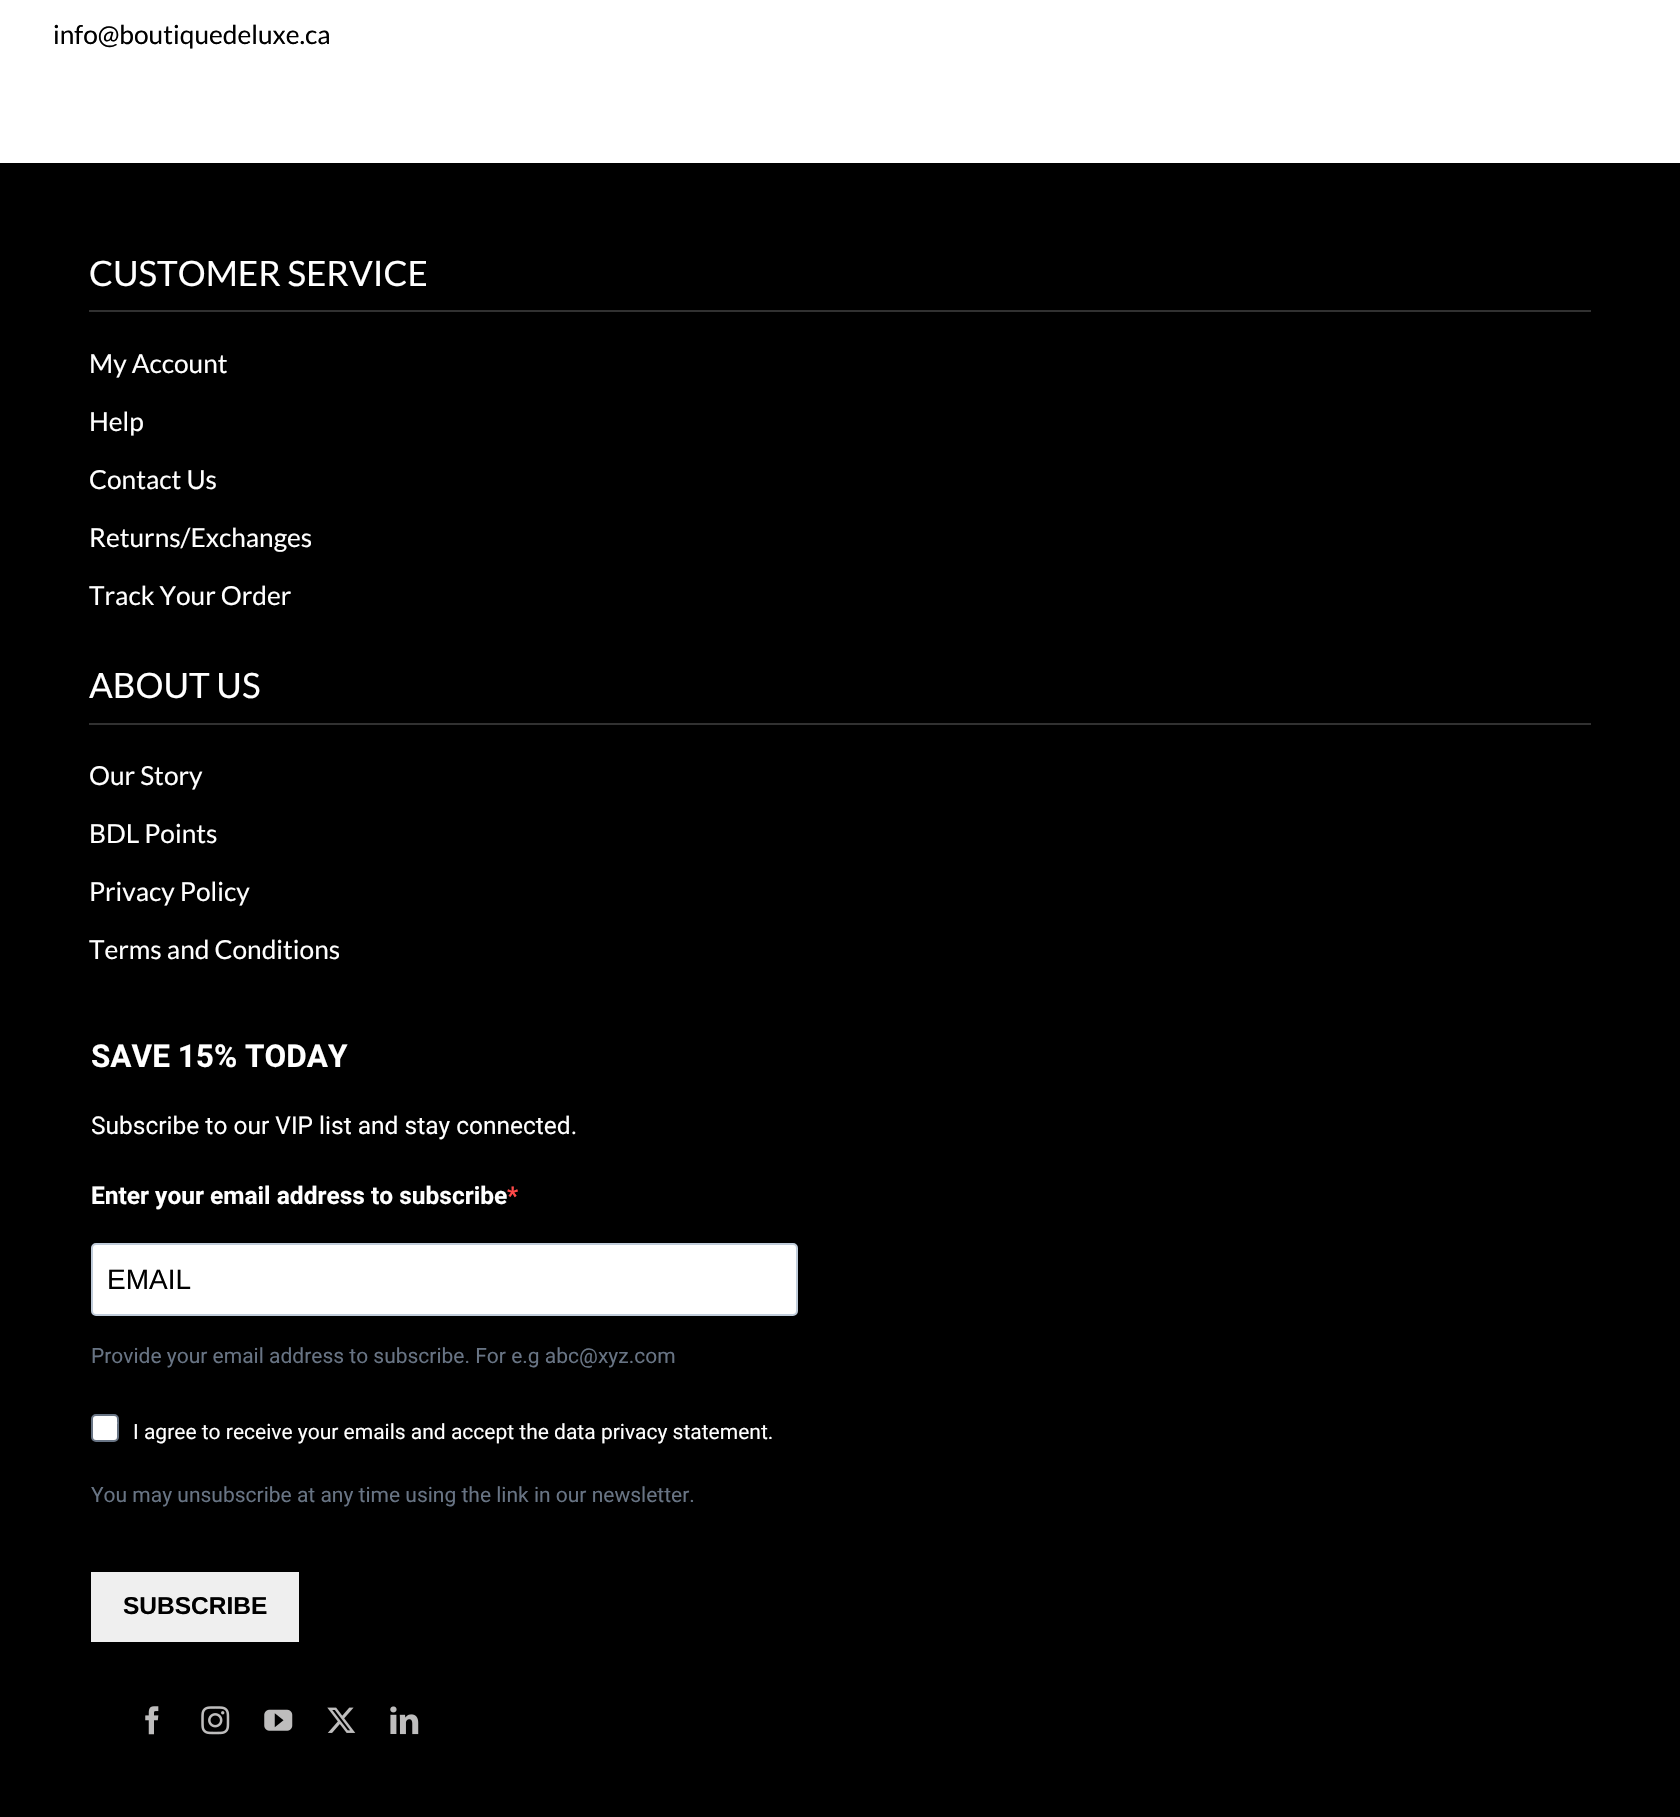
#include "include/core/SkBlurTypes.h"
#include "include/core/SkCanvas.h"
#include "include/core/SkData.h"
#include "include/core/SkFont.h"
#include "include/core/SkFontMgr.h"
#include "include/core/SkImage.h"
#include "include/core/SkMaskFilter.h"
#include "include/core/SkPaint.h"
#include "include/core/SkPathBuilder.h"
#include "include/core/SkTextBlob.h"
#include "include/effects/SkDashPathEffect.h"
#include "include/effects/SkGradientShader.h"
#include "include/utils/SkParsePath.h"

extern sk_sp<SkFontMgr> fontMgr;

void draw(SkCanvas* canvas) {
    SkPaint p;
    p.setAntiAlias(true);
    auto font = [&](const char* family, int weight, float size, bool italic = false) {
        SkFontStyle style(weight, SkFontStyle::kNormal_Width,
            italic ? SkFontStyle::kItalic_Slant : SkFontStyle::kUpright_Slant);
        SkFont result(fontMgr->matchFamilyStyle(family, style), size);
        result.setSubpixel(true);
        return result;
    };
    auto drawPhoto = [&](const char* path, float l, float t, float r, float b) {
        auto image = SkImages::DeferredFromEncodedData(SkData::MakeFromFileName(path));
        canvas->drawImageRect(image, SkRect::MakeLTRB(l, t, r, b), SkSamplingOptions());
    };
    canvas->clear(0xFFFFFFFF);
    auto font1 = font("Lato", 400, 26.25f);
    p.setColor(0xFF000000);
    canvas->drawString("info@boutiquedeluxe.ca", 53, 44, font1, p);
    canvas->drawRect(SkRect::MakeLTRB(0, 163, 1680, 1817), p);
    p.setColor(0xFF313131);
    canvas->drawRect(SkRect::MakeLTRB(89, 310, 1591, 312), p);
    auto font2 = font("Lato", 400, 35);
    p.setColor(0xFFFFFFFF);
    canvas->drawString("CUSTOMER SERVICE", 89, 286, font2, p);
    {
        const struct { const char* s; float x, y; } items[] = {
            {"My Account", 89, 373},
            {"Help", 89, 431},
            {"Contact Us", 89, 489},
            {"Returns/Exchanges", 89, 547},
            {"Track Your Order", 89, 605},
        };
        for (auto [s, x, y] : items) {
            canvas->drawString(s, x, y, font1, p);
        }
    }
    p.setColor(0xFF313131);
    canvas->drawRect(SkRect::MakeLTRB(89, 723, 1591, 725), p);
    p.setColor(0xFFFFFFFF);
    canvas->drawString("ABOUT US", 89, 698, font2, p);
    {
        const struct { const char* s; float x, y; } items[] = {
            {"Our Story", 89, 785},
            {"BDL Points", 89, 843},
            {"Privacy Policy", 89, 901},
            {"Terms and Conditions", 89, 959},
        };
        for (auto [s, x, y] : items) {
            canvas->drawString(s, x, y, font1, p);
        }
    }
    auto font3 = font("Roboto", 700, 31.5f);
    canvas->drawString("SAVE 15% TODAY", 91, 1067, font3, p);
    auto font4 = font("Roboto", 400, 24.5f);
    canvas->drawString("Subscribe to our VIP list and stay connected.", 91, 1134, font4, p);
    auto font5 = font("Roboto", 700, 24.5f);
    canvas->drawString("Enter your email address to subscribe", 91, 1204, font5, p);
    p.setColor(0xFFFF4949);
    canvas->drawString("*", 507, 1204, font5, p);
    p.setColor(0xFFFFFFFF);
    canvas->drawRoundRect(SkRect::MakeLTRB(92, 1244, 797, 1315), 4, 4, p);
    p.setStyle(SkPaint::kStroke_Style);
    p.setStrokeWidth(2);
    p.setColor(0xFFC0CCDA);
    canvas->drawRoundRect(SkRect::MakeLTRB(92, 1244, 797, 1315), 4, 4, p);
    auto font6 = font("Liberation Sans", 400, 28);
    p.setStyle(SkPaint::kFill_Style);
    p.setColor(0xFF000000);
    canvas->drawString("EMAIL", 107, 1289, font6, p);
    auto font7 = font("Roboto", 400, 21);
    p.setColor(0xFF687484);
    canvas->drawString("Provide your email address to subscribe. For e.g abc@xyz.com", 91, 1363, font7, p);
    p.setColor(0xFFFFFFFF);
    canvas->drawRoundRect(SkRect::MakeLTRB(92, 1415, 118, 1441), 4, 4, p);
    p.setStyle(SkPaint::kStroke_Style);
    p.setColor(0xFF687484);
    canvas->drawRoundRect(SkRect::MakeLTRB(92, 1415, 118, 1441), 4, 4, p);
    p.setStyle(SkPaint::kFill_Style);
    p.setColor(0xFFFFFFFF);
    canvas->drawPath(SkPathBuilder().moveTo(115, 1420.5f).lineTo(117.5f, 1423).lineTo(102.5f, 1437.5f).lineTo(100, 1435).close().detach(), p);
    canvas->drawString("I agree to receive your emails and accept the data privacy statement.", 133, 1439, font7, p);
    p.setColor(0xFF687484);
    canvas->drawString("You may unsubscribe at any time using the link in our newsletter.", 91, 1502, font7, p);
    p.setColor(0xFFEFEFEF);
    canvas->drawRect(SkRect::MakeLTRB(91, 1572, 299, 1642), p);
    auto font8 = font("Liberation Sans", 700, 24.5f);
    p.setColor(0xFF000000);
    canvas->drawString("SUBSCRIBE", 123, 1614, font8, p);
    drawPhoto("media/1.png", 145, 1706, 159, 1735);
    drawPhoto("media/2.png", 201, 1706, 230, 1735);
    drawPhoto("media/3.png", 264, 1709, 293, 1731);
    drawPhoto("media/4.png", 327, 1707, 356, 1733);
    drawPhoto("media/5.png", 390, 1706, 419, 1735);
}
